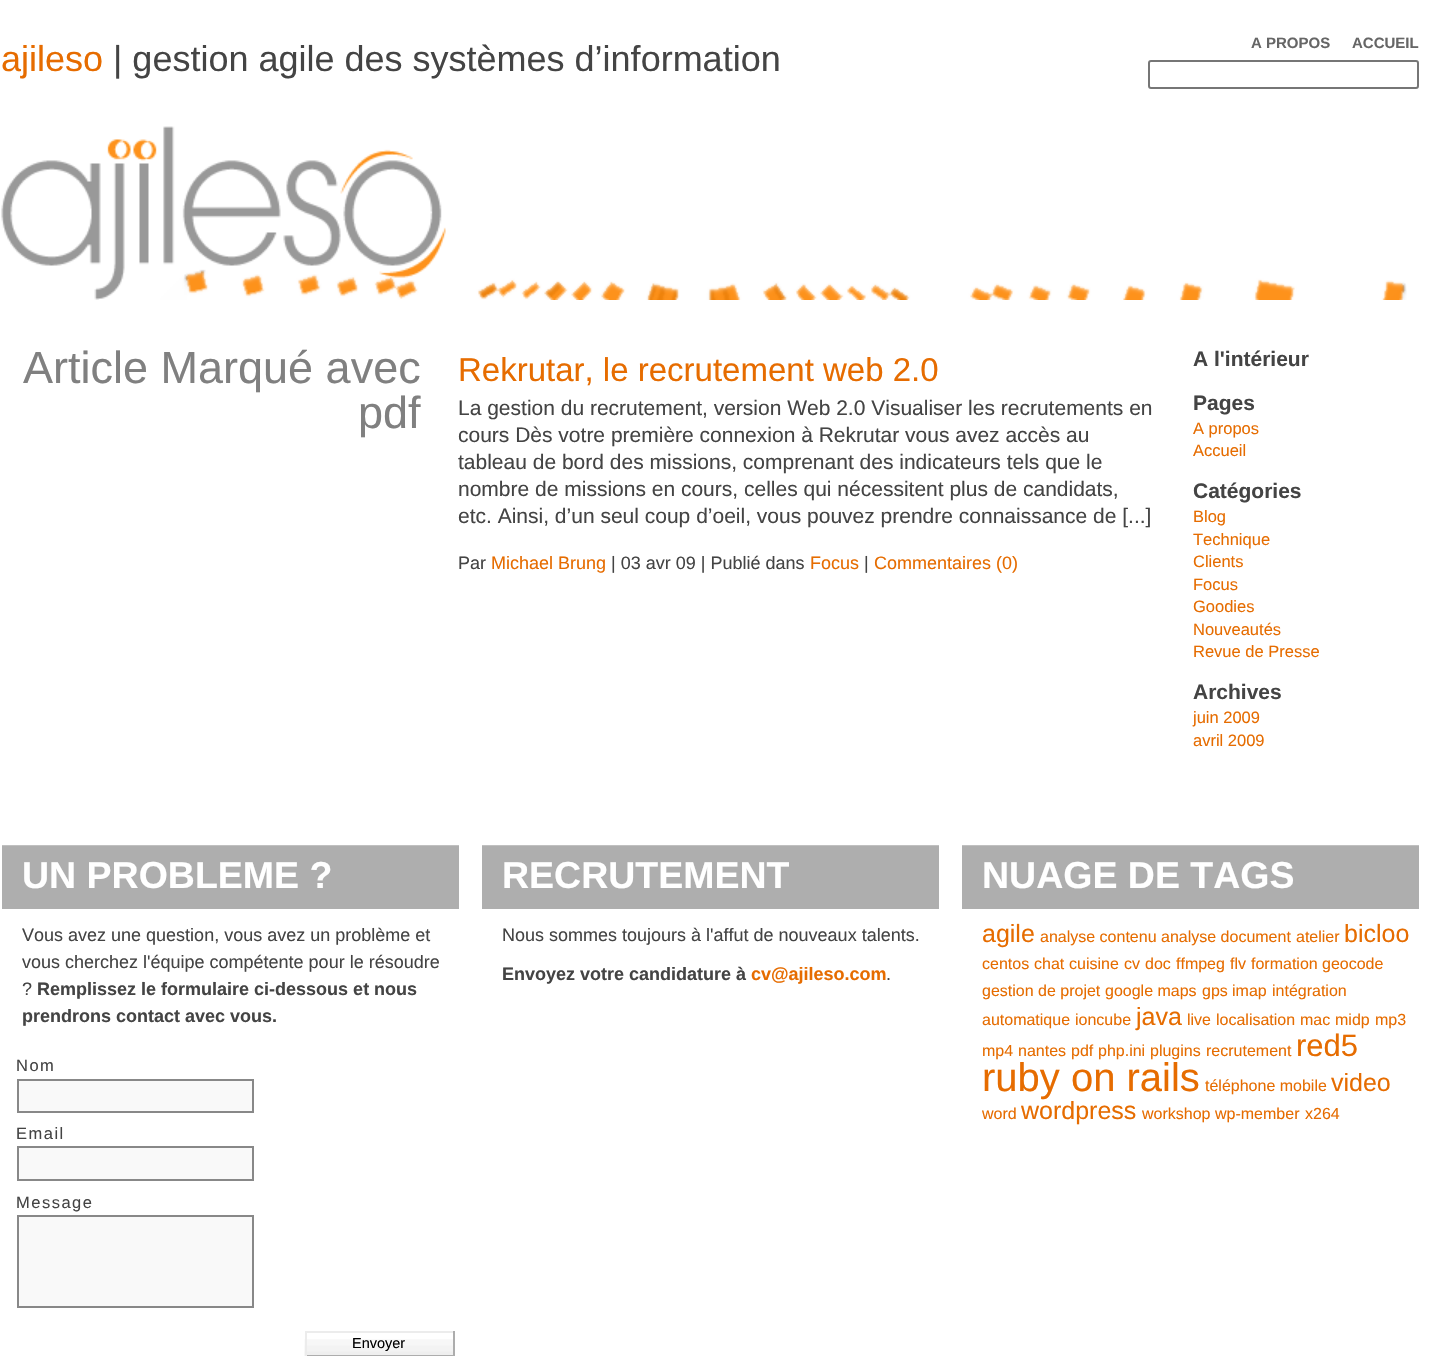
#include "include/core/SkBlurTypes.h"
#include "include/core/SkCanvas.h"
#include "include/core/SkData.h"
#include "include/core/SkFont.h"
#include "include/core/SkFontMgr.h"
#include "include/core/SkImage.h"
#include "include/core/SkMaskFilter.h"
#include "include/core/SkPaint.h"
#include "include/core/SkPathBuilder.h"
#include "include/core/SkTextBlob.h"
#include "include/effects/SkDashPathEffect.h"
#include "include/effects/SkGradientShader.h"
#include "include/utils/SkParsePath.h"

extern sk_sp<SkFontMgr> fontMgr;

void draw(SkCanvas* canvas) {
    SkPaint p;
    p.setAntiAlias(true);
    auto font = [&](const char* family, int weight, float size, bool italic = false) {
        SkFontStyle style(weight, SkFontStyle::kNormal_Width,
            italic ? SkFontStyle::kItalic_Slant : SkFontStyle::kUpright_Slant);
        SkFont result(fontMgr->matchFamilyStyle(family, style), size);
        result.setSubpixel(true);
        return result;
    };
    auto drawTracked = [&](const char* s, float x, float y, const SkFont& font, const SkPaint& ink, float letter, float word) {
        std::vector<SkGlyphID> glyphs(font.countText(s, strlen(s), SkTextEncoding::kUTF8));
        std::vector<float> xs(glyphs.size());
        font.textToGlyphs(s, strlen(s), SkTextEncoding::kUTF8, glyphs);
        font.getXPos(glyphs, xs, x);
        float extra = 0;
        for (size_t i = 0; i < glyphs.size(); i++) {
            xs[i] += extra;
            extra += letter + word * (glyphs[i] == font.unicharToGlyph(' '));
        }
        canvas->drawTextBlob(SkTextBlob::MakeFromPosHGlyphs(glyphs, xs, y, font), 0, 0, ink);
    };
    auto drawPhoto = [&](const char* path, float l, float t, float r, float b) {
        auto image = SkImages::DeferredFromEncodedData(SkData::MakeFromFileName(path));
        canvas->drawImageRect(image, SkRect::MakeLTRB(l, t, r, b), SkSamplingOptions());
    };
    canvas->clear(0xFFFFFFFF);
    drawPhoto("media/1.png", 1, 126, 1407, 300);
    auto font1 = font("Liberation Sans", 400, 36);
    p.setColor(0xFFE66C00);
    canvas->drawString("ajileso", 1, 71, font1, p);
    p.setColor(0xFF444444);
    canvas->drawString("| gestion agile des systèmes d’information", 113, 71, font1, p);
    auto font2 = font("Liberation Sans", 700, 15);
    p.setColor(0xFF666666);
    canvas->drawString("A PROPOS", 1251, 48, font2, p);
    canvas->drawString("ACCUEIL", 1352, 48, font2, p);
    p.setStyle(SkPaint::kStroke_Style);
    p.setStrokeWidth(2);
    p.setColor(0xFF767676);
    canvas->drawRoundRect(SkRect::MakeLTRB(1149, 61, 1418, 88), 2, 2, p);
    auto font3 = font("Liberation Sans", 400, 45);
    p.setStyle(SkPaint::kFill_Style);
    p.setColor(0xFF808080);
    canvas->drawString("Article Marqué avec", 23, 383, font3, p);
    canvas->drawString("pdf", 358, 428, font3, p);
    auto font4 = font("Liberation Sans", 400, 33);
    p.setColor(0xFFE66C00);
    canvas->drawString("Rekrutar, le recrutement web 2.0", 458, 381, font4, p);
    auto font5 = font("Liberation Sans", 400, 21);
    p.setColor(0xFF444444);
    {
        const struct { const char* s; float x, y; } items[] = {
            {"La gestion du recrutement, version Web 2.0 Visualiser les recrutements en", 458, 415},
            {"cours Dès votre première connexion à Rekrutar vous avez accès au", 458, 442},
            {"tableau de bord des missions, comprenant des indicateurs tels que le", 458, 469},
            {"nombre de missions en cours, celles qui nécessitent plus de candidats,", 458, 496},
            {"etc. Ainsi, d’un seul coup d’oeil, vous pouvez prendre connaissance de [...]", 458, 523},
        };
        for (auto [s, x, y] : items) {
            canvas->drawString(s, x, y, font5, p);
        }
    }
    auto font6 = font("Liberation Sans", 400, 18);
    canvas->drawString("Par", 458, 569, font6, p);
    p.setColor(0xFFE66C00);
    canvas->drawString("Michael Brung", 491, 569, font6, p);
    p.setColor(0xFF444444);
    canvas->drawString("| 03 avr 09 | Publié dans", 611, 569, font6, p);
    p.setColor(0xFFE66C00);
    canvas->drawString("Focus", 810, 569, font6, p);
    p.setColor(0xFF444444);
    canvas->drawString("|", 864, 569, font6, p);
    p.setColor(0xFFE66C00);
    canvas->drawString("Commentaires (0)", 874, 569, font6, p);
    auto font7 = font("Liberation Sans", 700, 21);
    p.setColor(0xFF444444);
    canvas->drawString("A l'intérieur", 1193, 366, font7, p);
    canvas->drawString("Pages", 1193, 410, font7, p);
    auto font8 = font("Liberation Sans", 400, 16.5f);
    p.setColor(0xFFE66C00);
    canvas->drawString("A propos", 1193, 434, font8, p);
    canvas->drawString("Accueil", 1193, 456, font8, p);
    p.setColor(0xFF444444);
    canvas->drawString("Catégories", 1193, 498, font7, p);
    p.setColor(0xFFE66C00);
    {
        const struct { const char* s; float x, y; } items[] = {
            {"Blog", 1193, 522},
            {"Technique", 1193, 545},
            {"Clients", 1193, 567},
            {"Focus", 1193, 590},
            {"Goodies", 1193, 612},
            {"Nouveautés", 1193, 635},
            {"Revue de Presse", 1193, 657},
        };
        for (auto [s, x, y] : items) {
            canvas->drawString(s, x, y, font8, p);
        }
    }
    p.setColor(0xFF444444);
    canvas->drawString("Archives", 1193, 699, font7, p);
    p.setColor(0xFFE66C00);
    canvas->drawString("juin 2009", 1193, 723, font8, p);
    canvas->drawString("avril 2009", 1193, 746, font8, p);
    p.setColor(0xFFC0C0C0);
    canvas->drawRect(SkRect::MakeLTRB(2, 845, 459, 846), p);
    p.setColor(0xFFAEAEAE);
    canvas->drawRect(SkRect::MakeLTRB(2, 846, 459, 909), p);
    auto font9 = font("Liberation Sans", 700, 37.5f);
    p.setColor(0xFFFFFFFF);
    canvas->drawString("UN PROBLEME ?", 22, 888, font9, p);
    p.setColor(0xFF444444);
    {
        const struct { const char* s; float x, y; } items[] = {
            {"Vous avez une question, vous avez un problème et", 22, 941},
            {"vous cherchez l'équipe compétente pour le résoudre", 22, 968},
            {"?", 22, 995},
        };
        for (auto [s, x, y] : items) {
            canvas->drawString(s, x, y, font6, p);
        }
    }
    auto font10 = font("Liberation Sans", 700, 18);
    canvas->drawString("Remplissez le formulaire ci-dessous et nous", 37, 995, font10, p);
    canvas->drawString("prendrons contact avec vous.", 22, 1022, font10, p);
    drawTracked("Nom", 16, 1071, font8, p, 1.5f, 0);
    p.setColor(0xFFF9F9F9);
    canvas->drawRect(SkRect::MakeLTRB(18, 1080, 253, 1112), p);
    p.setStyle(SkPaint::kStroke_Style);
    p.setColor(0xFF888888);
    canvas->drawRect(SkRect::MakeLTRB(18, 1080, 253, 1112), p);
    p.setStyle(SkPaint::kFill_Style);
    p.setColor(0xFF444444);
    drawTracked("Email", 16, 1139, font8, p, 1.5f, 0);
    p.setColor(0xFFF9F9F9);
    canvas->drawRect(SkRect::MakeLTRB(18, 1147, 253, 1180), p);
    p.setStyle(SkPaint::kStroke_Style);
    p.setColor(0xFF888888);
    canvas->drawRect(SkRect::MakeLTRB(18, 1147, 253, 1180), p);
    p.setStyle(SkPaint::kFill_Style);
    p.setColor(0xFF444444);
    drawTracked("Message", 16, 1208, font8, p, 1.5f, 0);
    p.setColor(0xFFF9F9F9);
    canvas->drawRect(SkRect::MakeLTRB(18, 1216, 253, 1307), p);
    p.setStyle(SkPaint::kStroke_Style);
    p.setColor(0xFF888888);
    canvas->drawRect(SkRect::MakeLTRB(18, 1216, 253, 1307), p);
    drawPhoto("media/2.png", 304, 1339, 453, 1356);
    p.setStyle(SkPaint::kFill_Style);
    {
        const struct { float l, t, r, b; SkColor color; } items[] = {
            {305, 1331, 455, 1333, 0xFFECECEC},
            {453, 1331, 455, 1356, 0xFFADADAD},
            {305, 1355, 455, 1356, 0xFFADADAD},
            {305, 1331, 307, 1356, 0xFFECECEC},
        };
        for (auto [l, t, r, b, color] : items) {
            p.setColor(color);
            canvas->drawRect(SkRect::MakeLTRB(l, t, r, b), p);
        }
    }
    auto font11 = font("Liberation Sans", 400, 14.5f);
    p.setColor(0xFF000000);
    canvas->drawString("Envoyer", 352, 1348, font11, p);
    p.setColor(0xFFC0C0C0);
    canvas->drawRect(SkRect::MakeLTRB(482, 845, 939, 846), p);
    p.setColor(0xFFAEAEAE);
    canvas->drawRect(SkRect::MakeLTRB(482, 846, 939, 909), p);
    p.setColor(0xFFFFFFFF);
    canvas->drawString("RECRUTEMENT", 502, 888, font9, p);
    p.setColor(0xFF444444);
    canvas->drawString("Nous sommes toujours à l'affut de nouveaux talents.", 502, 941, font6, p);
    canvas->drawString("Envoyez votre candidature à", 502, 980, font10, p);
    p.setColor(0xFFE66C00);
    canvas->drawString("cv@ajileso.com", 751, 980, font10, p);
    p.setColor(0xFF444444);
    canvas->drawString(".", 886, 980, font6, p);
    p.setColor(0xFFC0C0C0);
    canvas->drawRect(SkRect::MakeLTRB(962, 845, 1419, 846), p);
    p.setColor(0xFFAEAEAE);
    canvas->drawRect(SkRect::MakeLTRB(962, 846, 1419, 909), p);
    p.setColor(0xFFFFFFFF);
    canvas->drawString("NUAGE DE TAGS", 982, 888, font9, p);
    auto font12 = font("Liberation Sans", 400, 25);
    p.setColor(0xFFE66C00);
    canvas->drawString("agile", 982, 942, font12, p);
    auto font13 = font("Liberation Sans", 400, 16);
    {
        const struct { const char* s; float x, y; } items[] = {
            {"analyse contenu", 1040, 942},
            {"analyse document", 1161, 942},
            {"atelier", 1296, 942},
        };
        for (auto [s, x, y] : items) {
            canvas->drawString(s, x, y, font13, p);
        }
    }
    canvas->drawString("bicloo", 1344, 942, font12, p);
    {
        const struct { const char* s; float x, y; } items[] = {
            {"centos", 982, 969},
            {"chat", 1034, 969},
            {"cuisine", 1069, 969},
            {"cv", 1124, 969},
            {"doc", 1145, 969},
            {"ffmpeg", 1176, 969},
            {"flv", 1230, 969},
            {"formation", 1251, 969},
            {"geocode", 1322, 969},
            {"gestion de projet", 982, 996},
            {"google maps", 1105, 996},
            {"gps", 1202, 996},
            {"imap", 1232, 996},
            {"intégration", 1272, 996},
            {"automatique", 982, 1025},
            {"ioncube", 1075, 1025},
        };
        for (auto [s, x, y] : items) {
            canvas->drawString(s, x, y, font13, p);
        }
    }
    canvas->drawString("java", 1136, 1025, font12, p);
    {
        const struct { const char* s; float x, y; } items[] = {
            {"live", 1187, 1025},
            {"localisation", 1216, 1025},
            {"mac", 1300, 1025},
            {"midp", 1335, 1025},
            {"mp3", 1375, 1025},
            {"mp4", 982, 1056},
            {"nantes", 1018, 1056},
            {"pdf", 1071, 1056},
            {"php.ini", 1098, 1056},
            {"plugins", 1150, 1056},
            {"recrutement", 1206, 1056},
        };
        for (auto [s, x, y] : items) {
            canvas->drawString(s, x, y, font13, p);
        }
    }
    auto font14 = font("Liberation Sans", 400, 31);
    canvas->drawString("red5", 1296, 1056, font14, p);
    auto font15 = font("Liberation Sans", 400, 40);
    canvas->drawString("ruby on rails", 982, 1091, font15, p);
    canvas->drawString("téléphone mobile", 1205, 1091, font13, p);
    canvas->drawString("video", 1331, 1091, font12, p);
    canvas->drawString("word", 982, 1119, font13, p);
    canvas->drawString("wordpress", 1021, 1119, font12, p);
    {
        const struct { const char* s; float x, y; } items[] = {
            {"workshop", 1142, 1119},
            {"wp-member", 1215, 1119},
            {"x264", 1305, 1119},
        };
        for (auto [s, x, y] : items) {
            canvas->drawString(s, x, y, font13, p);
        }
    }
}
